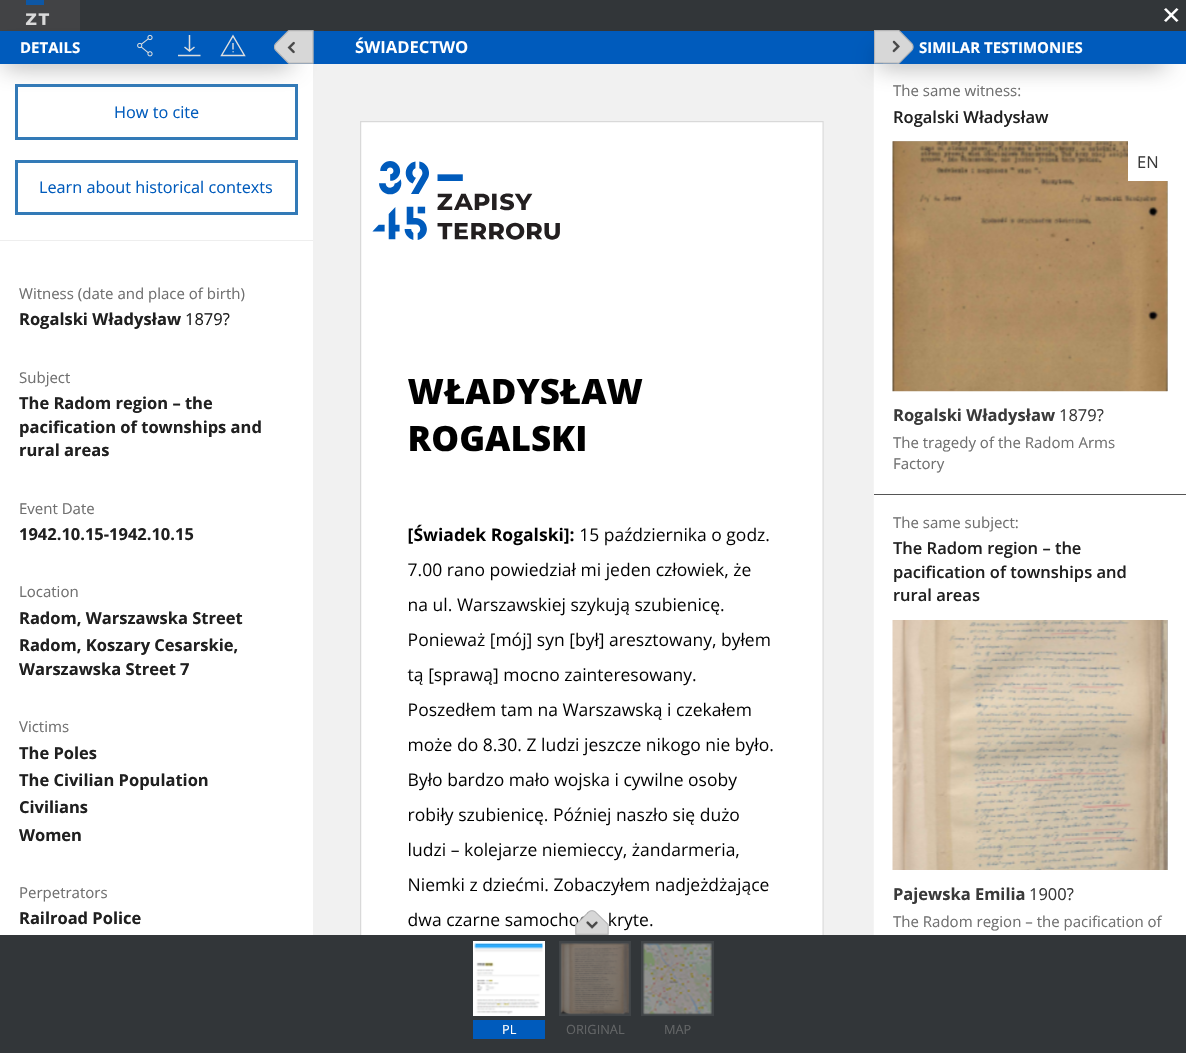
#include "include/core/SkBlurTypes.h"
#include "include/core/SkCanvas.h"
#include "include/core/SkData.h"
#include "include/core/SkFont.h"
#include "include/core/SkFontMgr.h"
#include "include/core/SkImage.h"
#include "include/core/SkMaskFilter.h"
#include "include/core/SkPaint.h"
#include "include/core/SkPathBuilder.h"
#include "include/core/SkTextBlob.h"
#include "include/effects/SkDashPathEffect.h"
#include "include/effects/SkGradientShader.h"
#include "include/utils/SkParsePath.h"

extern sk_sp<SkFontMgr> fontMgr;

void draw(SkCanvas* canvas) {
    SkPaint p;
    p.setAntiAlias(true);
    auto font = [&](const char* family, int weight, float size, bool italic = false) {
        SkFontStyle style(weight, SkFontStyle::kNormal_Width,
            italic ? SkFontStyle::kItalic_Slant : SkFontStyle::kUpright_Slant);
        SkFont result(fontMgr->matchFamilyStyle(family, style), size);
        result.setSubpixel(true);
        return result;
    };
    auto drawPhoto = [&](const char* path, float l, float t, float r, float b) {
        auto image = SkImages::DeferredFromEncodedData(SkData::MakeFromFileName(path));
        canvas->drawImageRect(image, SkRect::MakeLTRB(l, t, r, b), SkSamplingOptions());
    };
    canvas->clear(0xFF323639);
    p.setColor(0xFF424345);
    canvas->drawRect(SkRect::MakeLTRB(0, 0, 80, 31), p);
    drawPhoto("media/1.png", 25, 0, 50, 25);
    p.setColor(0xFFFFFFFF);
    canvas->drawPath(SkPathBuilder().moveTo(1164, 20.5f).lineTo(1176.5f, 8).lineTo(1178.5f, 9.5f).lineTo(1166, 22).close().detach(), p);
    canvas->drawPath(SkPathBuilder().moveTo(1166, 8).lineTo(1178.5f, 20.5f).lineTo(1176.5f, 22).lineTo(1164, 9.5f).close().detach(), p);
    canvas->drawRect(SkRect::MakeLTRB(0, 64, 313, 935), p);
    drawPhoto("media/4.png", 313, 31, 874, 935);
    p.setColor(0xA6000000);
    p.setMaskFilter(SkMaskFilter::MakeBlur(kNormal_SkBlurStyle, 12.5f));
    canvas->drawRect(SkRect::MakeLTRB(4, 55, 291, 63), p);
    p.setMaskFilter(nullptr);
    p.setColor(0xFF005BBC);
    canvas->drawRect(SkRect::MakeLTRB(0, 31, 313, 64), p);
    auto font1 = font("Open Sans", 700, 15);
    p.setColor(0xFFFFFFFF);
    canvas->drawString("DETAILS", 20, 53, font1, p);
    drawPhoto("media/2.png", 137, 34, 153, 57);
    p.setStyle(SkPaint::kStroke_Style);
    p.setStrokeWidth(1.5f);
    p.setColor(0xFFDFDFDF);
    canvas->drawPath(SkPathBuilder().moveTo(178, 55.5f).lineTo(200.5f, 55.5f).moveTo(189.5f, 35).lineTo(189.5f, 51).moveTo(189.5f, 51).lineTo(184.5f, 47).lineTo(189.5f, 51).lineTo(194.5f, 47).detach(), p);
    p.setStrokeWidth(1.4f);
    canvas->drawPath(SkPathBuilder().moveTo(233, 55.5f).lineTo(221.5f, 55.5f).lineTo(233, 36).lineTo(244.5f, 55.5f).close().moveTo(233, 43).lineTo(233, 49.5f).detach(), p);
    p.setStyle(SkPaint::kFill_Style);
    canvas->drawCircle(233.1f, 51.7f, 0.7f, p);
    drawPhoto("media/3.png", 274, 30, 314, 64);
    p.setStyle(SkPaint::kStroke_Style);
    p.setStrokeWidth(3);
    p.setColor(0xFF337AB7);
    canvas->drawRect(SkRect::MakeLTRB(16.5f, 85.5f, 296.5f, 138.5f), p);
    auto font2 = font("Open Sans", 400, 16.25f);
    p.setStyle(SkPaint::kFill_Style);
    p.setColor(0xFF005BBC);
    canvas->drawString("How to cite", 114, 118, font2, p);
    p.setStyle(SkPaint::kStroke_Style);
    p.setColor(0xFF337AB7);
    canvas->drawRect(SkRect::MakeLTRB(16.5f, 161.5f, 296.5f, 213.5f), p);
    p.setStyle(SkPaint::kFill_Style);
    p.setColor(0xFF005BBC);
    canvas->drawString("Learn about historical contexts", 39, 193, font2, p);
    p.setColor(0xFFEEEEEE);
    canvas->drawRect(SkRect::MakeLTRB(0, 240, 313, 241), p);
    auto font3 = font("Open Sans", 400, 15);
    p.setColor(0xFF707070);
    canvas->drawString("Witness (date and place of birth)", 19, 299, font3, p);
    auto font4 = font("Open Sans", 700, 16.5f);
    p.setColor(0xFF202020);
    canvas->drawString("Rogalski Władysław", 19, 325, font4, p);
    auto font5 = font("Open Sans", 400, 16.5f);
    canvas->drawString("1879?", 185, 325, font5, p);
    p.setColor(0xFF707070);
    canvas->drawString("Subject", 19, 383, font3, p);
    p.setColor(0xFF202020);
    {
        const struct { const char* s; float x, y; } items[] = {
            {"The Radom region – the", 19, 409},
            {"pacification of townships and", 19, 433},
            {"rural areas", 19, 456},
        };
        for (auto [s, x, y] : items) {
            canvas->drawString(s, x, y, font4, p);
        }
    }
    p.setColor(0xFF707070);
    canvas->drawString("Event Date", 19, 514, font3, p);
    p.setColor(0xFF202020);
    canvas->drawString("1942.10.15-1942.10.15", 19, 540, font4, p);
    p.setColor(0xFF707070);
    canvas->drawString("Location", 19, 597, font3, p);
    p.setColor(0xFF202020);
    {
        const struct { const char* s; float x, y; } items[] = {
            {"Radom, Warszawska Street", 19, 624},
            {"Radom, Koszary Cesarskie,", 19, 651},
            {"Warszawska Street 7", 19, 675},
        };
        for (auto [s, x, y] : items) {
            canvas->drawString(s, x, y, font4, p);
        }
    }
    p.setColor(0xFF707070);
    canvas->drawString("Victims", 19, 732, font3, p);
    p.setColor(0xFF202020);
    {
        const struct { const char* s; float x, y; } items[] = {
            {"The Poles", 19, 759},
            {"The Civilian Population", 19, 786},
            {"Civilians", 19, 813},
            {"Women", 19, 841},
        };
        for (auto [s, x, y] : items) {
            canvas->drawString(s, x, y, font4, p);
        }
    }
    p.setColor(0xFF707070);
    canvas->drawString("Perpetrators", 19, 898, font3, p);
    p.setColor(0xFF202020);
    canvas->drawString("Railroad Police", 19, 924, font4, p);
    p.setColor(0xFFFFFFFF);
    canvas->drawRect(SkRect::MakeLTRB(874, 64, 1186, 935), p);
    p.setColor(0xA6000000);
    p.setMaskFilter(SkMaskFilter::MakeBlur(kNormal_SkBlurStyle, 12.5f));
    canvas->drawRect(SkRect::MakeLTRB(878, 55, 1165, 63), p);
    p.setMaskFilter(nullptr);
    p.setColor(0xFF005BBC);
    canvas->drawRect(SkRect::MakeLTRB(874, 31, 1186, 64), p);
    drawPhoto("media/5.png", 874, 30, 914, 64);
    p.setColor(0xFFFFFFFF);
    canvas->drawString("SIMILAR TESTIMONIES", 919, 53, font1, p);
    p.setColor(0xFF555555);
    canvas->drawRect(SkRect::MakeLTRB(874, 494, 1186, 495), p);
    p.setColor(0xFF707070);
    canvas->drawString("The same witness:", 893, 96, font3, p);
    auto font6 = font("Open Sans", 600, 16.5f);
    p.setColor(0xFF202020);
    canvas->drawString("Rogalski Władysław", 893, 123, font6, p);
    p.setColor(0xFFC0C0C0);
    canvas->drawRect(SkRect::MakeLTRB(893, 141, 1168, 391), p);
    drawPhoto("media/6.png", 892, 141, 1168, 392);
    p.setColor(0xFFFFFFFF);
    canvas->drawRect(SkRect::MakeLTRB(1128, 141, 1168, 181), p);
    p.setColor(0xFF3A3A3A);
    canvas->drawString("EN", 1137, 168, font5, p);
    canvas->drawString("Rogalski Władysław", 893, 421, font4, p);
    canvas->drawString("1879?", 1059, 421, font5, p);
    p.setColor(0xFF707070);
    {
        const struct { const char* s; float x, y; } items[] = {
            {"The tragedy of the Radom Arms", 893, 448},
            {"Factory", 893, 469},
            {"The same subject:", 893, 528},
        };
        for (auto [s, x, y] : items) {
            canvas->drawString(s, x, y, font3, p);
        }
    }
    p.setColor(0xFF202020);
    {
        const struct { const char* s; float x, y; } items[] = {
            {"The Radom region – the", 893, 554},
            {"pacification of townships and", 893, 578},
            {"rural areas", 893, 601},
        };
        for (auto [s, x, y] : items) {
            canvas->drawString(s, x, y, font6, p);
        }
    }
    p.setColor(0xFFC0C0C0);
    canvas->drawRect(SkRect::MakeLTRB(1167, 620, 1168, 870), p);
    drawPhoto("media/7.png", 892, 620, 1168, 870);
    p.setColor(0xFF3A3A3A);
    canvas->drawString("Pajewska Emilia", 893, 900, font4, p);
    canvas->drawString("1900?", 1029, 900, font5, p);
    p.setColor(0xFF707070);
    canvas->drawString("The Radom region – the pacification of", 893, 927, font3, p);
    drawPhoto("media/8.png", 575, 910, 609, 935);
    p.setStyle(SkPaint::kStroke_Style);
    p.setColor(0xFFFFFFFF);
    canvas->drawRect(SkRect::MakeLTRB(474.5f, 942.5f, 543.5f, 1014.5f), p);
    drawPhoto("media/9.png", 474, 943, 543, 1015);
    p.setStyle(SkPaint::kFill_Style);
    p.setColor(0xFF005BBC);
    canvas->drawRect(SkRect::MakeLTRB(473, 1020, 545, 1039), p);
    auto font7 = font("Open Sans", 400, 12.75f);
    p.setColor(0xFFFFFFFF);
    canvas->drawString("PL", 502, 1034, font7, p);
    p.setStyle(SkPaint::kStroke_Style);
    p.setColor(0xFF414548);
    canvas->drawRect(SkRect::MakeLTRB(560.5f, 942.5f, 629.5f, 1014.5f), p);
    drawPhoto("media/10.png", 560, 943, 630, 1015);
    p.setStyle(SkPaint::kFill_Style);
    p.setColor(0xFF636566);
    canvas->drawString("ORIGINAL", 566, 1034, font7, p);
    p.setStyle(SkPaint::kStroke_Style);
    p.setColor(0xFF414548);
    canvas->drawRect(SkRect::MakeLTRB(642.5f, 942.5f, 712.5f, 1014.5f), p);
    drawPhoto("media/11.png", 643, 943, 712, 1015);
    p.setStyle(SkPaint::kFill_Style);
    p.setColor(0xFF636566);
    canvas->drawString("MAP", 664, 1034, font7, p);
}
